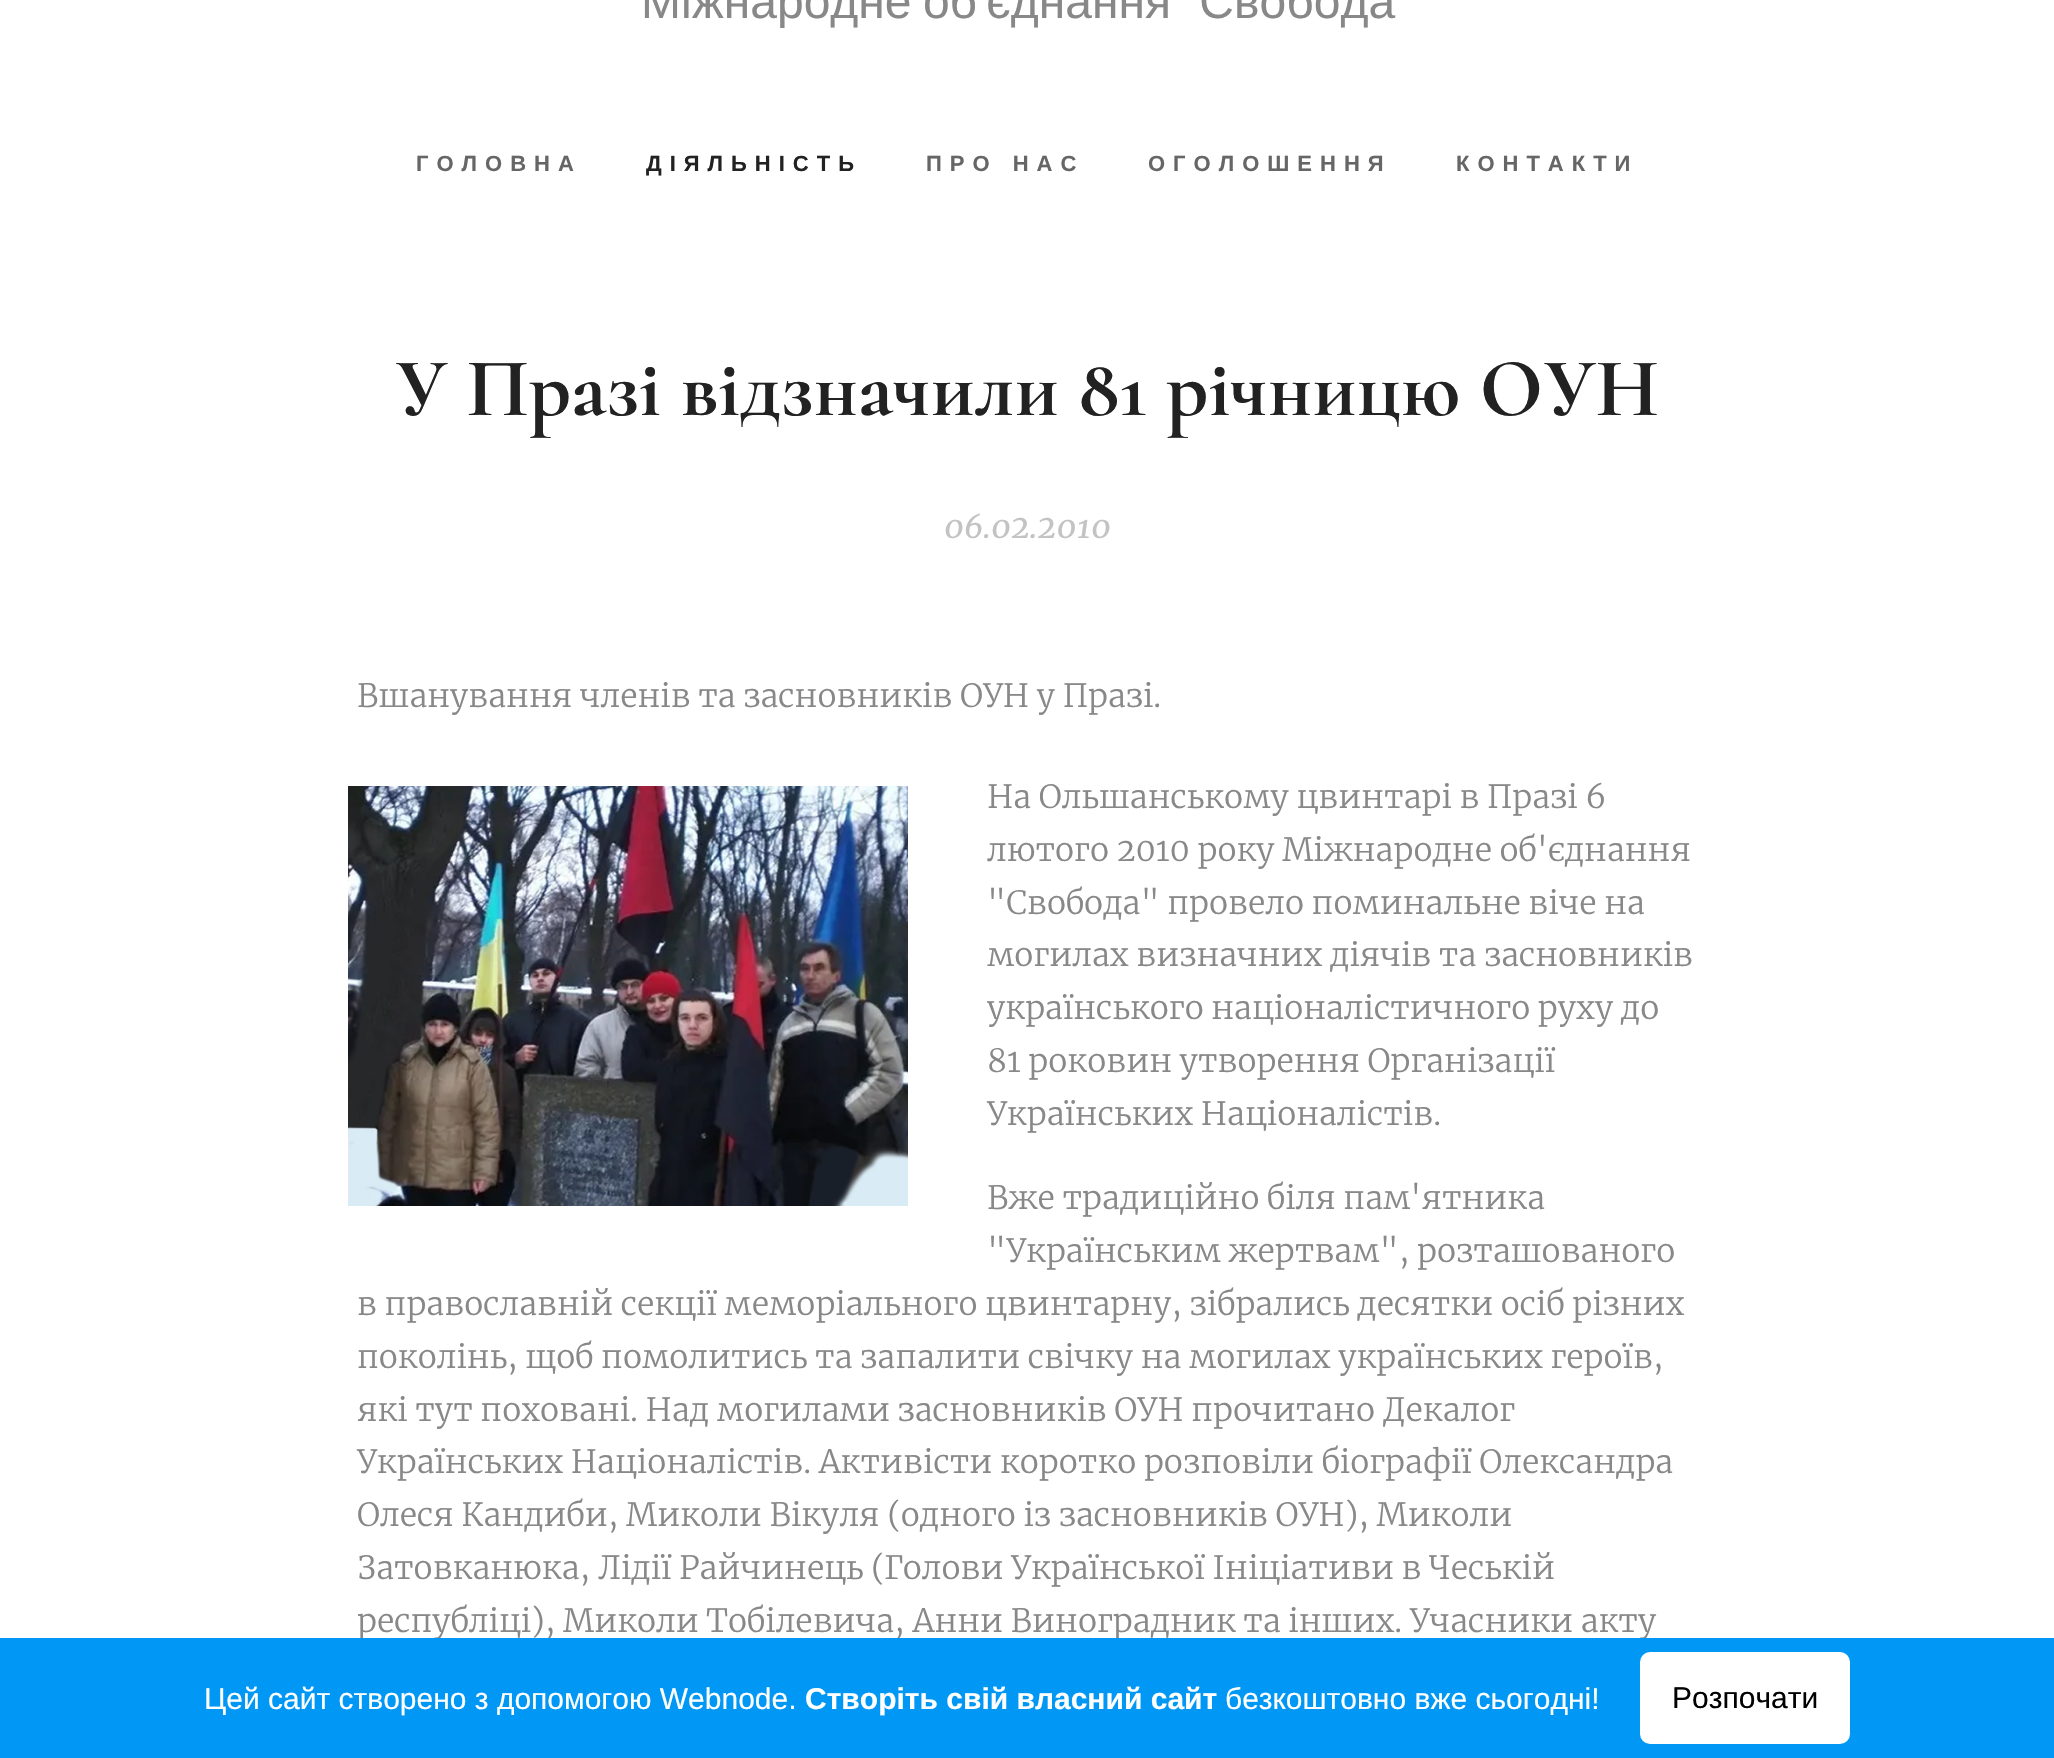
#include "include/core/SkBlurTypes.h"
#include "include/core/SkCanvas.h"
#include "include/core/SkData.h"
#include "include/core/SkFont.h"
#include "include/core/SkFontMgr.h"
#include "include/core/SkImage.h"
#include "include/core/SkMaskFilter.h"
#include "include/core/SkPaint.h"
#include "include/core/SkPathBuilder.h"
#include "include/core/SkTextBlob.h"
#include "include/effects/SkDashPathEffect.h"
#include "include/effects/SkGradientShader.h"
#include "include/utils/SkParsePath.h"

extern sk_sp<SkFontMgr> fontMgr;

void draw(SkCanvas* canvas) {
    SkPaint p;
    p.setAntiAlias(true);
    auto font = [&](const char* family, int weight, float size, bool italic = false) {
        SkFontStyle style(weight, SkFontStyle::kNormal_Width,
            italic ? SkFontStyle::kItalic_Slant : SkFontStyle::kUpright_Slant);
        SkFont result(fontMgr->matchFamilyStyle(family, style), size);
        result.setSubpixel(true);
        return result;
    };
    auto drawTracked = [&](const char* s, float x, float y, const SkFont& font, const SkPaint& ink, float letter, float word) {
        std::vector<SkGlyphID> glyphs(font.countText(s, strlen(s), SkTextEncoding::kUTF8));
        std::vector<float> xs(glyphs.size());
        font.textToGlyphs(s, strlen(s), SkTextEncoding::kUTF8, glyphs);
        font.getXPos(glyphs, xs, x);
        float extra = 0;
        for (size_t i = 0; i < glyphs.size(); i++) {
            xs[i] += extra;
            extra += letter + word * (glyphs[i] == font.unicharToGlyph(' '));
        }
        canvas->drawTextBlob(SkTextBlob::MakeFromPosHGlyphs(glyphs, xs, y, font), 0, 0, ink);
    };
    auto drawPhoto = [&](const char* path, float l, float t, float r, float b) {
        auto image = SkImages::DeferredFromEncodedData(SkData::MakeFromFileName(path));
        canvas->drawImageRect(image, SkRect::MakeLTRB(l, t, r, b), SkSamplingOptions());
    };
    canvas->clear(0xFFFFFFFF);
    auto font1 = font("Liberation Sans", 400, 48);
    p.setColor(0xFF888888);
    drawTracked("Міжнародне об'єднання \"Свобода", 641, 18, font1, p, 0, -2);
    auto font2 = font("Liberation Sans", 700, 22);
    p.setColor(0xFF666666);
    drawTracked("ГОЛОВНА", 416, 171, font2, p, 8, 0);
    p.setColor(0xFF222222);
    drawTracked("ДІЯЛЬНІСТЬ", 646, 171, font2, p, 8, 0);
    p.setColor(0xFF666666);
    drawTracked("ПРО НАС", 926, 171, font2, p, 8, 1);
    drawTracked("ОГОЛОШЕННЯ", 1148, 171, font2, p, 8, 0);
    drawTracked("КОНТАКТИ", 1456, 171, font2, p, 8, 0);
    auto font3 = font("Cormorant", 700, 83.25f);
    p.setColor(0xFF222222);
    canvas->drawString("У Празі відзначили 81 річницю ОУН", 395, 415, font3, p);
    auto font4 = font("Merriweather", 400, 32, true);
    p.setColor(0xFFC3C3C3);
    canvas->drawString("06.02.2010", 944, 538, font4, p);
    auto font5 = font("Merriweather", 300, 32);
    p.setColor(0xFF888888);
    {
        const struct { const char* s; float x, y; } items[] = {
            {"Вшанування членів та засновників ОУН у Празі.", 357, 707},
            {"На Ольшанському цвинтарі в Празі 6", 987, 808},
            {"лютого 2010 року Міжнародне об'єднання", 987, 861},
            {"\"Свобода\" провело поминальне віче на", 987, 914},
            {"могилах визначних діячів та засновників", 987, 966},
            {"українського націоналістичного руху до", 987, 1019},
            {"81 роковин утворення Організації", 987, 1072},
            {"Українських Націоналістів.", 987, 1125},
            {"Вже традиційно біля пам'ятника", 987, 1209},
            {"\"Українським жертвам\", розташованого", 987, 1262},
            {"в православній секції меморіального цвинтарну, зібрались десятки осіб різних", 357, 1315},
            {"поколінь, щоб помолитись та запалити свічку на могилах українських героїв,", 357, 1368},
            {"які тут поховані. Над могилами засновників ОУН прочитано Декалог", 357, 1421},
            {"Українських Націоналістів. Активісти коротко розповіли біографії Олександра", 357, 1473},
            {"Олеся Кандиби, Миколи Вікуля (одного із засновників ОУН), Миколи", 357, 1526},
            {"Затовканюка, Лідії Райчинець (Голови Української Ініціативи в Чеській", 357, 1579},
            {"республіці), Миколи Тобілевича, Анни Виноградник та інших. Учасники акту", 357, 1632},
        };
        for (auto [s, x, y] : items) {
            canvas->drawString(s, x, y, font5, p);
        }
    }
    drawPhoto("media/1.png", 348, 786, 908, 1206);
    p.setColor(0xFF0097F5);
    canvas->drawRect(SkRect::MakeLTRB(0, 1638, 2054, 1758), p);
    auto font6 = font("Liberation Sans", 400, 30);
    p.setColor(0xFFFFFFFF);
    canvas->drawString("Цей сайт створено з допомогою Webnode.", 204, 1709, font6, p);
    auto font7 = font("Liberation Sans", 700, 30);
    canvas->drawString("Створіть свій власний сайт", 805, 1709, font7, p);
    canvas->drawString("безкоштовно вже сьогодні!", 1225, 1709, font6, p);
    canvas->drawRoundRect(SkRect::MakeLTRB(1640, 1652, 1850, 1744), 10, 10, p);
    p.setColor(0xFF000000);
    canvas->drawString("Розпочати", 1672, 1708, font6, p);
}
